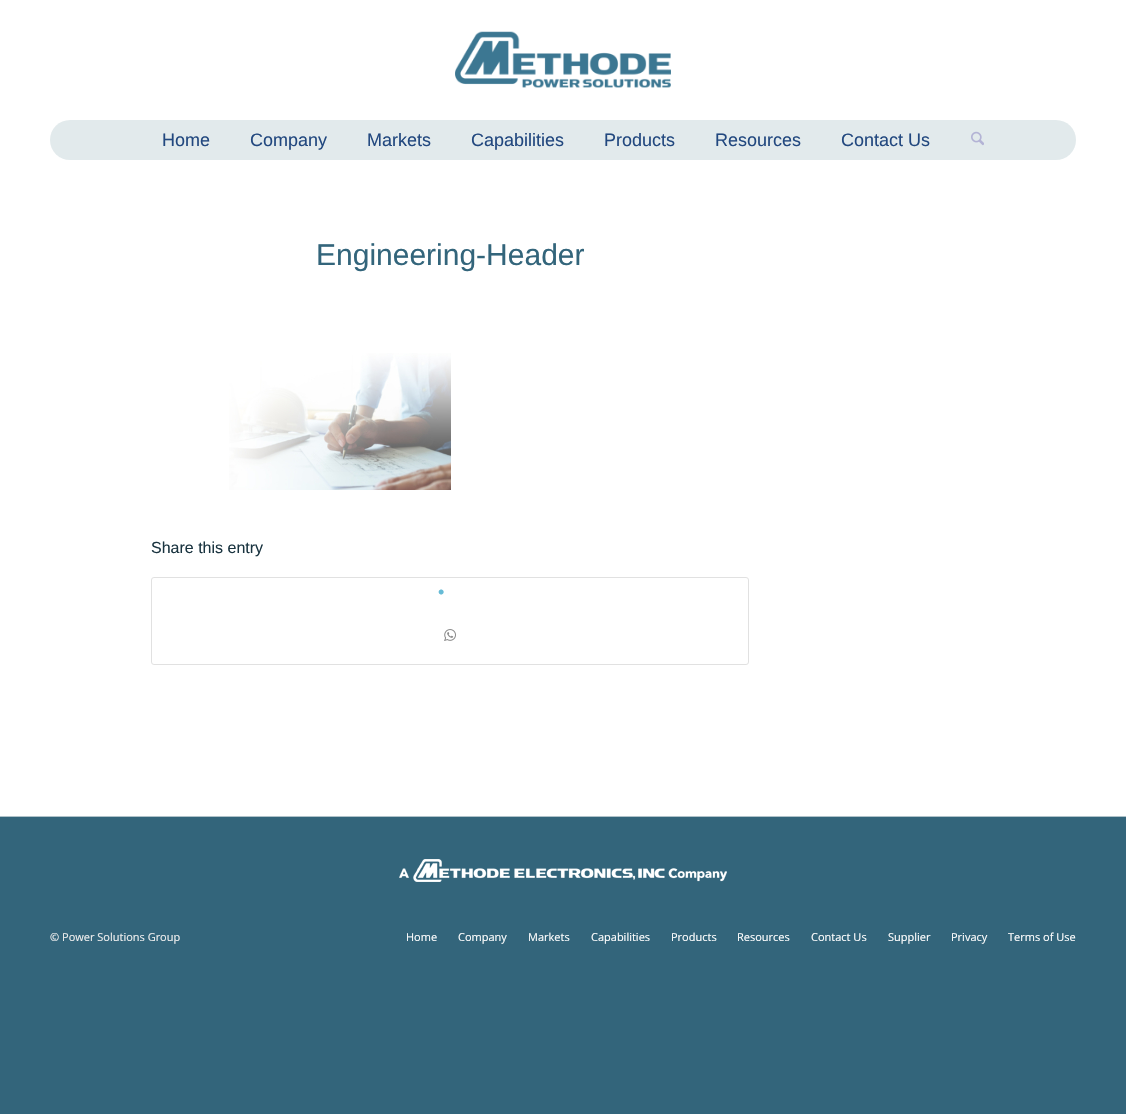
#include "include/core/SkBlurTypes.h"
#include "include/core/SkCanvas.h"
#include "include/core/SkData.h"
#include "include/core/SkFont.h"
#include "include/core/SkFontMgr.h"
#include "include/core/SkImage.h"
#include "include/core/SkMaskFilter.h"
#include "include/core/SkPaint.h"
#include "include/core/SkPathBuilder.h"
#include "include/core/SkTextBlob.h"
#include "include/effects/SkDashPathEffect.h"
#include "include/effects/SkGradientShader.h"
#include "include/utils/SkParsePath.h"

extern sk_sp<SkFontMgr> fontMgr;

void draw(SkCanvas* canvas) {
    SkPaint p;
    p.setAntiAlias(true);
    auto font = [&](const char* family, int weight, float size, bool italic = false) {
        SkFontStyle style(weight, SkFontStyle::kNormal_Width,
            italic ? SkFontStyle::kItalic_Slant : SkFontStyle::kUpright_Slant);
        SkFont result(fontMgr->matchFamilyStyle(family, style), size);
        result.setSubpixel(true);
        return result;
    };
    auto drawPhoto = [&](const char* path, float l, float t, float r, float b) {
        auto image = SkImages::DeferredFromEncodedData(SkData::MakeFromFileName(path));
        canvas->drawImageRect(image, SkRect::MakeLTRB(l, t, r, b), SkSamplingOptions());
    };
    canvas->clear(0xFF33657B);
    p.setColor(0xFFFFFFFF);
    canvas->drawRect(SkRect::MakeLTRB(0, 0, 1126, 816), p);
    drawPhoto("media/1.png", 455, 31, 671, 88);
    drawPhoto("media/2.png", 50, 120, 1076, 160);
    auto font1 = font("Liberation Sans", 400, 18);
    p.setColor(0xFF22487F);
    {
        const struct { const char* s; float x, y; } items[] = {
            {"Home", 162, 146},
            {"Company", 250, 146},
            {"Markets", 367, 146},
            {"Capabilities", 471, 146},
            {"Products", 604, 146},
            {"Resources", 715, 146},
            {"Contact Us", 841, 146},
        };
        for (auto [s, x, y] : items) {
            canvas->drawString(s, x, y, font1, p);
        }
    }
    drawPhoto("media/3.png", 971, 131, 984, 146);
    auto font2 = font("Liberation Sans", 400, 30);
    p.setColor(0xFF33657B);
    canvas->drawString("Engineering-Header", 316, 265, font2, p);
    drawPhoto("media/4.png", 229, 353, 451, 490);
    auto font3 = font("Liberation Sans", 400, 16);
    p.setColor(0xFF1A3440);
    canvas->drawString("Share this entry", 151, 553, font3, p);
    p.setStyle(SkPaint::kStroke_Style);
    p.setStrokeWidth(1);
    p.setColor(0xFFE1E1E1);
    canvas->drawRoundRect(SkRect::MakeLTRB(151.5f, 577.5f, 748.5f, 664.5f), 2.5f, 2.5f, p);
    p.setStyle(SkPaint::kFill_Style);
    p.setColor(0xFF66BBD6);
    canvas->drawString("•", 438, 598, font1, p);
    drawPhoto("media/5.png", 444, 629, 456, 641);
    p.setColor(0xFFAFC2C9);
    canvas->drawRect(SkRect::MakeLTRB(0, 816, 1126, 817), p);
    drawPhoto("media/6.png", 399, 859, 727, 882);
    auto font4 = font("Open Sans", 400, 11);
    p.setColor(0xFFEEEEEE);
    canvas->drawString("© Power Solutions Group", 50, 941, font4, p);
    p.setColor(0xFFFFFFFF);
    {
        const struct { const char* s; float x, y; } items[] = {
            {"Home", 406, 941},
            {"Company", 458, 941},
            {"Markets", 528, 941},
            {"Capabilities", 591, 941},
            {"Products", 671, 941},
            {"Resources", 737, 941},
            {"Contact Us", 811, 941},
            {"Supplier", 888, 941},
            {"Privacy", 951, 941},
            {"Terms of Use", 1008, 941},
        };
        for (auto [s, x, y] : items) {
            canvas->drawString(s, x, y, font4, p);
        }
    }
}
